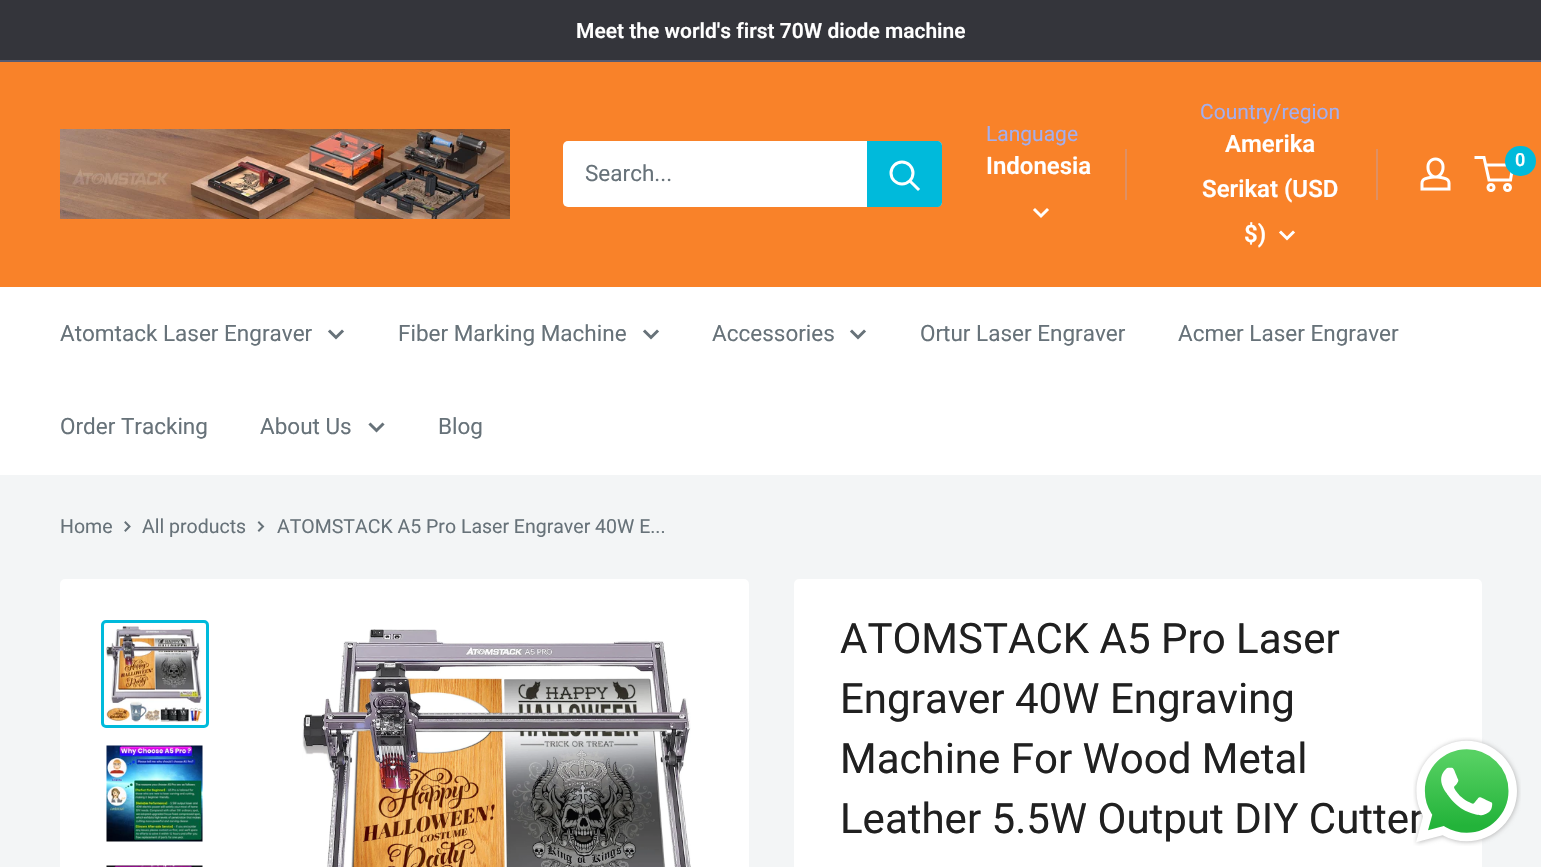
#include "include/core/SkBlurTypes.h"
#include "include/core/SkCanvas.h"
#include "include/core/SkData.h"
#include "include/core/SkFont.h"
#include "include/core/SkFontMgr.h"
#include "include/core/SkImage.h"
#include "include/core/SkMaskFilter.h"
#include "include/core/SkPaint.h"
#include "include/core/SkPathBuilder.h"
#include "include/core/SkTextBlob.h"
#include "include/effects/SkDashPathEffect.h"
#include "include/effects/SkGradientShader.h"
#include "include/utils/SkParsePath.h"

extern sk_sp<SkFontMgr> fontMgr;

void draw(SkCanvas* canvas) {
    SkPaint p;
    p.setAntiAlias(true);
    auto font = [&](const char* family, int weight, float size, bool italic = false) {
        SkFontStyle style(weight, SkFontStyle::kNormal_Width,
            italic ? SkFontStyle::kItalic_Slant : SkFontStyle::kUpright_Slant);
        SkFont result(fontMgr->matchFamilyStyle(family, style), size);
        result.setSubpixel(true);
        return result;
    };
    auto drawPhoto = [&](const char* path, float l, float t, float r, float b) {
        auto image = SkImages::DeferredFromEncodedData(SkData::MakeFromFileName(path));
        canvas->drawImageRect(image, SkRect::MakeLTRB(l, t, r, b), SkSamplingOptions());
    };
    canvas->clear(0xFFF3F5F6);
    p.setColor(0xFF34353B);
    canvas->drawRect(SkRect::MakeLTRB(0, 0, 1541, 60), p);
    p.setColor(0xFF555A71);
    canvas->drawRect(SkRect::MakeLTRB(0, 60, 1541, 62), p);
    auto font1 = font("Roboto", 600, 21);
    p.setColor(0xFFFFFFFF);
    canvas->drawString("Meet the world's first 70W diode machine", 576, 38, font1, p);
    p.setColor(0xFFF98229);
    canvas->drawRect(SkRect::MakeLTRB(0, 62, 1541, 287), p);
    drawPhoto("media/1.png", 60, 129, 510, 219);
    p.setColor(0xFFFFFFFF);
    canvas->drawRoundRect(SkRect::MakeLTRB(563, 141, 942, 207), 5, 5, p);
    auto font2 = font("Roboto", 400, 22.5f);
    p.setColor(0xFF677279);
    canvas->drawString("Search...", 585, 181, font2, p);
    p.setColor(0xFF00BADB);
    canvas->drawPath(SkPathBuilder().moveTo(867, 141).lineTo(937, 141).cubicTo(940, 141, 942, 143, 942, 146).lineTo(942, 202).cubicTo(942, 205, 940, 207, 937, 207).lineTo(867, 207).close().detach(), p);
    p.setStyle(SkPaint::kStroke_Style);
    p.setStrokeWidth(3);
    p.setStrokeCap(SkPaint::kSquare_Cap);
    p.setColor(0xFFFFFFFF);
    canvas->drawPath(SkPathBuilder().moveTo(918, 189).lineTo(910.5f, 181.5f).detach(), p);
    p.setStrokeCap(SkPaint::kButt_Cap);
    canvas->drawCircle(902, 173, 11, p);
    auto font3 = font("Roboto", 400, 21);
    p.setStyle(SkPaint::kFill_Style);
    p.setColor(0xFFA3AFEF);
    canvas->drawString("Language", 986, 141, font3, p);
    auto font4 = font("Roboto", 600, 24);
    p.setColor(0xFFFFFFFF);
    canvas->drawString("Indonesia", 986, 174, font4, p);
    p.setStyle(SkPaint::kStroke_Style);
    p.setStrokeCap(SkPaint::kSquare_Cap);
    canvas->drawPath(SkPathBuilder().moveTo(1047, 210).lineTo(1041, 216).lineTo(1035, 210).detach(), p);
    p.setStyle(SkPaint::kFill_Style);
    p.setColor(0xFFDF9064);
    canvas->drawRect(SkRect::MakeLTRB(1125, 149, 1127, 200), p);
    p.setColor(0xFFA3AFEF);
    canvas->drawString("Country/region", 1200, 119, font3, p);
    p.setColor(0xFFFFFFFF);
    {
        const struct { const char* s; float x, y; } items[] = {
            {"Amerika", 1225, 152},
            {"Serikat (USD", 1202, 197},
            {"$)", 1244, 242},
        };
        for (auto [s, x, y] : items) {
            canvas->drawString(s, x, y, font4, p);
        }
    }
    p.setStyle(SkPaint::kStroke_Style);
    canvas->drawPath(SkPathBuilder().moveTo(1293, 232.5f).lineTo(1287, 238.5f).lineTo(1281, 232.5f).detach(), p);
    p.setStyle(SkPaint::kFill_Style);
    p.setColor(0xFFDF9064);
    canvas->drawRect(SkRect::MakeLTRB(1376, 149, 1378, 200), p);
    drawPhoto("media/2.png", 1420, 157, 1451, 191);
    p.setStyle(SkPaint::kStroke_Style);
    p.setStrokeCap(SkPaint::kButt_Cap);
    p.setColor(0xFFFFFFFF);
    canvas->drawCircle(1491, 187.5f, 3, p);
    canvas->drawCircle(1507.5f, 187.5f, 3, p);
    canvas->drawPath(SkPathBuilder().moveTo(1485.5f, 165).lineTo(1513, 165).lineTo(1510.5f, 180).lineTo(1489, 180).lineTo(1484, 157.5f).lineTo(1474.5f, 157.5f).detach(), p);
    p.setStyle(SkPaint::kFill_Style);
    p.setColor(0xFF00BADB);
    canvas->drawRoundRect(SkRect::MakeLTRB(1505, 146, 1536, 176), 15, 15, p);
    auto font5 = font("Roboto", 600, 18);
    p.setColor(0xFFFFFFFF);
    canvas->drawString("0", 1515, 166, font5, p);
    canvas->drawRect(SkRect::MakeLTRB(0, 287, 1541, 475), p);
    p.setColor(0xFF677279);
    canvas->drawString("Atomtack Laser Engraver", 60, 341, font2, p);
    p.setStyle(SkPaint::kStroke_Style);
    p.setStrokeCap(SkPaint::kSquare_Cap);
    canvas->drawPath(SkPathBuilder().moveTo(342, 331.5f).lineTo(336, 337.5f).lineTo(330, 331.5f).detach(), p);
    p.setStyle(SkPaint::kFill_Style);
    canvas->drawString("Fiber Marking Machine", 398, 341, font2, p);
    p.setStyle(SkPaint::kStroke_Style);
    canvas->drawPath(SkPathBuilder().moveTo(657, 331.5f).lineTo(651, 337.5f).lineTo(645, 331.5f).detach(), p);
    p.setStyle(SkPaint::kFill_Style);
    canvas->drawString("Accessories", 712, 341, font2, p);
    p.setStyle(SkPaint::kStroke_Style);
    canvas->drawPath(SkPathBuilder().moveTo(864, 331.5f).lineTo(858, 337.5f).lineTo(852, 331.5f).detach(), p);
    p.setStyle(SkPaint::kFill_Style);
    {
        const struct { const char* s; float x, y; } items[] = {
            {"Ortur Laser Engraver", 920, 341},
            {"Acmer Laser Engraver", 1178, 341},
            {"Order Tracking", 60, 434},
            {"About Us", 260, 434},
        };
        for (auto [s, x, y] : items) {
            canvas->drawString(s, x, y, font2, p);
        }
    }
    p.setStyle(SkPaint::kStroke_Style);
    canvas->drawPath(SkPathBuilder().moveTo(382.5f, 424.5f).lineTo(376.5f, 430.5f).lineTo(370.5f, 424.5f).detach(), p);
    p.setStyle(SkPaint::kFill_Style);
    canvas->drawString("Blog", 438, 434, font2, p);
    auto font6 = font("Roboto", 400, 19.5f);
    canvas->drawString("Home", 60, 533, font6, p);
    p.setStyle(SkPaint::kStroke_Style);
    p.setStrokeWidth(2);
    canvas->drawPath(SkPathBuilder().moveTo(125.5f, 522.5f).lineTo(129.5f, 526.5f).lineTo(125.5f, 530.5f).detach(), p);
    p.setStyle(SkPaint::kFill_Style);
    canvas->drawString("All products", 142, 533, font6, p);
    p.setStyle(SkPaint::kStroke_Style);
    canvas->drawPath(SkPathBuilder().moveTo(259, 522.5f).lineTo(263, 526.5f).lineTo(259, 530.5f).detach(), p);
    p.setStyle(SkPaint::kFill_Style);
    canvas->drawString("ATOMSTACK A5 Pro Laser Engraver 40W E...", 277, 533, font6, p);
    p.setColor(0xFFFFFFFF);
    canvas->drawRoundRect(SkRect::MakeLTRB(61, 580, 748, 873), 4, 4, p);
    p.setStyle(SkPaint::kStroke_Style);
    p.setStrokeCap(SkPaint::kButt_Cap);
    canvas->drawRoundRect(SkRect::MakeLTRB(61, 580, 748, 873), 4, 4, p);
    p.setStrokeWidth(3);
    p.setColor(0xFF00BADB);
    canvas->drawRoundRect(SkRect::MakeLTRB(102.5f, 621.5f, 207.5f, 726.5f), 3.5f, 3.5f, p);
    drawPhoto("media/3.png", 106, 626, 203, 722);
    drawPhoto("media/4.png", 106, 745, 203, 842);
    drawPhoto("media/5.png", 106, 865, 203, 867);
    drawPhoto("media/6.png", 302, 629, 691, 867);
    p.setStyle(SkPaint::kFill_Style);
    p.setColor(0xFFFFFFFF);
    canvas->drawRoundRect(SkRect::MakeLTRB(795, 580, 1481, 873), 4, 4, p);
    p.setStyle(SkPaint::kStroke_Style);
    p.setStrokeWidth(2);
    canvas->drawRoundRect(SkRect::MakeLTRB(795, 580, 1481, 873), 4, 4, p);
    auto font7 = font("Roboto", 400, 42);
    p.setStyle(SkPaint::kFill_Style);
    p.setColor(0xFF202020);
    {
        const struct { const char* s; float x, y; } items[] = {
            {"ATOMSTACK A5 Pro Laser", 840, 653},
            {"Engraver 40W Engraving", 840, 713},
            {"Machine For Wood Metal", 840, 773},
            {"Leather 5.5W Output DIY Cutter", 840, 833},
        };
        for (auto [s, x, y] : items) {
            canvas->drawString(s, x, y, font7, p);
        }
    }
    drawPhoto("media/7.png", 1413, 737, 1521, 846);
}
